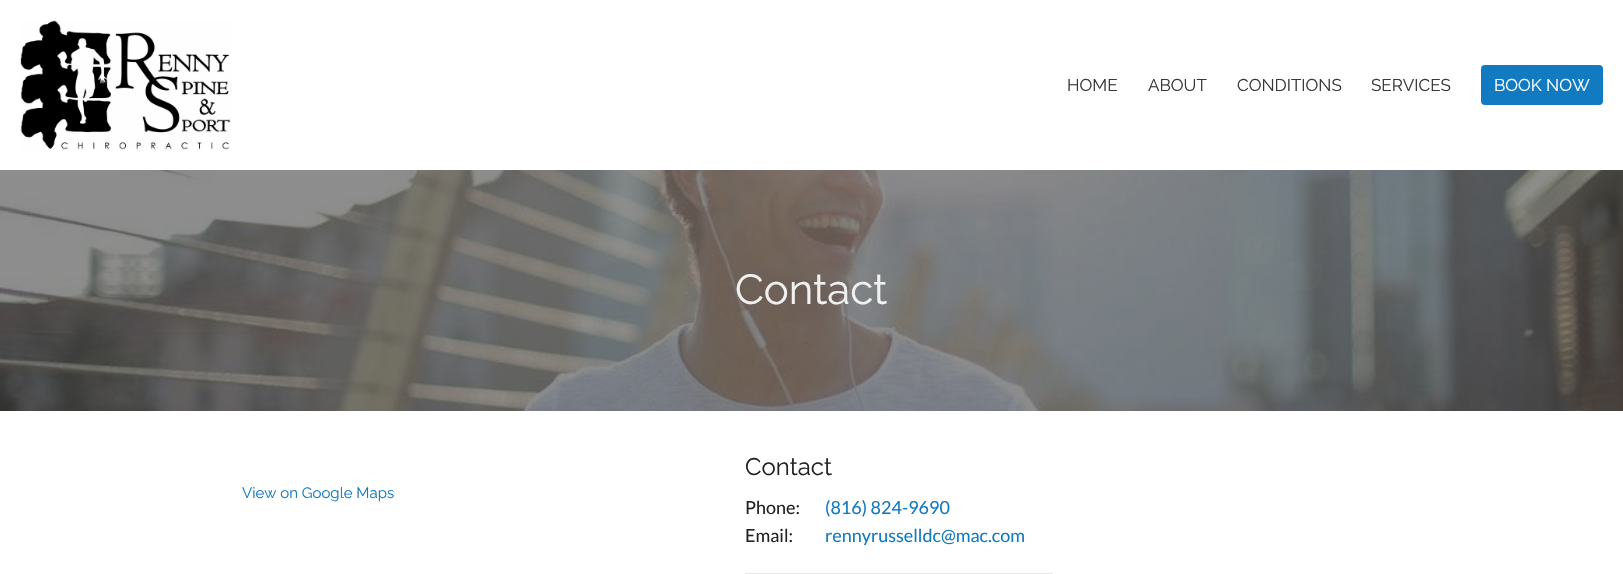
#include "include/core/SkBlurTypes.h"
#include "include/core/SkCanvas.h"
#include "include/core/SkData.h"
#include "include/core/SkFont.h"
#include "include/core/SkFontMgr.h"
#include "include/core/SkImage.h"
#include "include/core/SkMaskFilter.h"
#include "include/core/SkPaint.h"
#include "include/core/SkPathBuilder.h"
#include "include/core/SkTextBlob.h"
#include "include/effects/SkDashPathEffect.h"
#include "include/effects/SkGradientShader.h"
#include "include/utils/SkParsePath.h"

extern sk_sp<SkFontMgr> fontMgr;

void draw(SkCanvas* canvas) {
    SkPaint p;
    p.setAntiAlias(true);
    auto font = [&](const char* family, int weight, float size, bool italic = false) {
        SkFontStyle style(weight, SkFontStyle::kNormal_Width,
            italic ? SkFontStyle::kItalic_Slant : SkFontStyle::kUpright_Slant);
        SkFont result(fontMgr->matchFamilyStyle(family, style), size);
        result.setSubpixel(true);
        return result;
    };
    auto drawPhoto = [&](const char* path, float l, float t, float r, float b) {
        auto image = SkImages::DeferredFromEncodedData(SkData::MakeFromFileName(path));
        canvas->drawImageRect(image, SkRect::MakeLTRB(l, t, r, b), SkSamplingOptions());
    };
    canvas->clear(0xFFFFFFFF);
    drawPhoto("media/1.png", 20, 20, 231, 150);
    auto font1 = font("Raleway", 400, 17);
    p.setColor(0xFF383838);
    {
        const struct { const char* s; float x, y; } items[] = {
            {"HOME", 1067, 91},
            {"ABOUT", 1148, 91},
            {"CONDITIONS", 1237, 91},
            {"SERVICES", 1371, 91},
        };
        for (auto [s, x, y] : items) {
            canvas->drawString(s, x, y, font1, p);
        }
    }
    p.setColor(0xFF127AC0);
    canvas->drawRoundRect(SkRect::MakeLTRB(1481, 65, 1603, 105), 4, 4, p);
    p.setColor(0xFFFFFFFF);
    canvas->drawString("BOOK NOW", 1494, 91, font1, p);
    drawPhoto("media/2.png", 0, 170, 1623, 411);
    auto font2 = font("Raleway", 400, 42);
    p.setColor(0xFFF1F1F1);
    canvas->drawString("Contact", 735, 304, font2, p);
    auto font3 = font("Raleway", 400, 15);
    p.setColor(0xFF127AC0);
    canvas->drawString("View on Google Maps", 242, 498, font3, p);
    auto font4 = font("Raleway", 400, 24);
    p.setColor(0xFF222222);
    canvas->drawString("Contact", 745, 475, font4, p);
    auto font5 = font("Lato", 400, 18);
    canvas->drawString("Phone:", 745, 514, font5, p);
    p.setColor(0xFF127AC0);
    canvas->drawString("(816) 824-9690", 825, 514, font5, p);
    p.setColor(0xFF222222);
    canvas->drawString("Email:", 745, 542, font5, p);
    p.setColor(0xFF127AC0);
    canvas->drawString("rennyrusselldc@mac.com", 825, 542, font5, p);
    p.setColor(0xFFE6E6E6);
    canvas->drawRect(SkRect::MakeLTRB(745, 573, 1053, 574), p);
}
